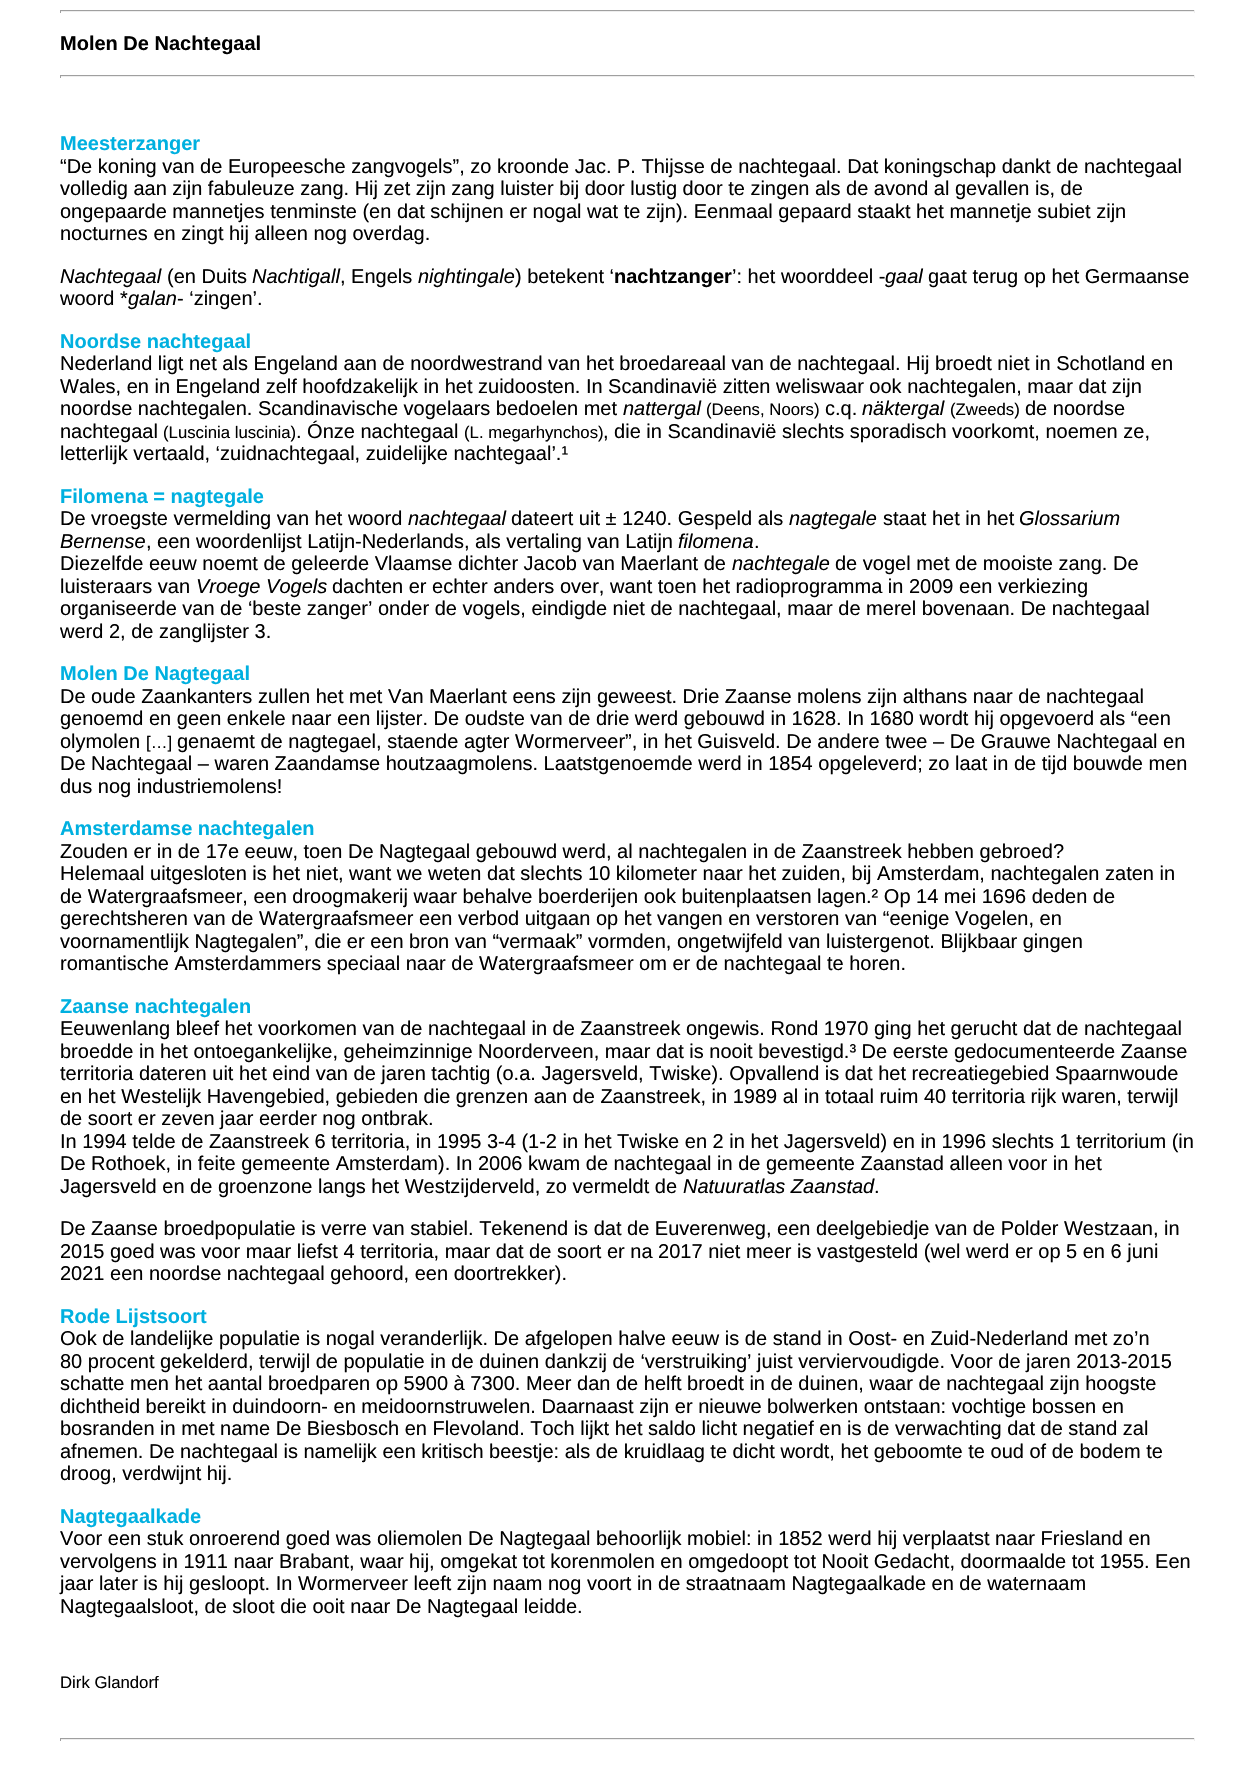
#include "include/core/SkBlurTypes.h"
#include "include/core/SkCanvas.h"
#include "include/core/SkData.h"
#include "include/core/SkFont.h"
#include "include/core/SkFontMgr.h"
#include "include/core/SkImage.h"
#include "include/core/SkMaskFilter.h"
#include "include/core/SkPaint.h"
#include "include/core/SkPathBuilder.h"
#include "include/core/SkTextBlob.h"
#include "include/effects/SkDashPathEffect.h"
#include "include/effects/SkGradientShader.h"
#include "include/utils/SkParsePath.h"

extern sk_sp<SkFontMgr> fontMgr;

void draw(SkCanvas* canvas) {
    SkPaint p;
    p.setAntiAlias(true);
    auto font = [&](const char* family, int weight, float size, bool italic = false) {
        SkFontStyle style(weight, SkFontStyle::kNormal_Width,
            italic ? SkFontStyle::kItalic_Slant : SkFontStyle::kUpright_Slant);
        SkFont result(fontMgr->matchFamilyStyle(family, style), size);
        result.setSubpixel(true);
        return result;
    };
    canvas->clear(0xFFFFFFFF);
    {
        const struct { float l, t, r, b; SkColor color; } items[] = {
            {60, 10, 1195, 11, 0xFF9F9F9F},
            {1194, 10, 1195, 13, 0xFFEEEEEE},
            {60, 11, 1195, 12, 0xFFEEEEEE},
            {60, 10, 61, 13, 0xFF9F9F9F},
        };
        for (auto [l, t, r, b, color] : items) {
            p.setColor(color);
            canvas->drawRect(SkRect::MakeLTRB(l, t, r, b), p);
        }
    }
    auto font1 = font("Liberation Sans", 700, 20);
    p.setColor(0xFF000000);
    canvas->drawString("Molen De Nachtegaal", 60, 50, font1, p);
    {
        const struct { float l, t, r, b; SkColor color; } items[] = {
            {60, 75, 1195, 76, 0xFF9F9F9F},
            {1194, 75, 1195, 78, 0xFFEEEEEE},
            {60, 76, 1195, 77, 0xFFEEEEEE},
            {60, 75, 61, 78, 0xFF9F9F9F},
        };
        for (auto [l, t, r, b, color] : items) {
            p.setColor(color);
            canvas->drawRect(SkRect::MakeLTRB(l, t, r, b), p);
        }
    }
    p.setColor(0xFF00B0E0);
    canvas->drawString("Meesterzanger", 60, 150, font1, p);
    auto font2 = font("Liberation Sans", 400, 20);
    p.setColor(0xFF000000);
    {
        const struct { const char* s; float x, y; } items[] = {
            {"“De koning van de Europeesche zangvogels”, zo kroonde Jac. P. Thijsse de nachtegaal. Dat koningschap dankt de nachtegaal", 60, 173},
            {"volledig aan zijn fabuleuze zang. Hij zet zijn zang luister bij door lustig door te zingen als de avond al gevallen is, de", 60, 195},
            {"ongepaarde mannetjes tenminste (en dat schijnen er nogal wat te zijn). Eenmaal gepaard staakt het mannetje subiet zijn", 60, 218},
            {"nocturnes en zingt hij alleen nog overdag.", 60, 240},
        };
        for (auto [s, x, y] : items) {
            canvas->drawString(s, x, y, font2, p);
        }
    }
    auto font3 = font("Liberation Sans", 400, 20, true);
    canvas->drawString("Nachtegaal", 60, 283, font3, p);
    canvas->drawString("(en Duits", 167, 283, font2, p);
    canvas->drawString("Nachtigall", 252, 283, font3, p);
    canvas->drawString(", Engels", 340, 283, font2, p);
    canvas->drawString("nightingale", 418, 283, font3, p);
    canvas->drawString(") betekent ‘", 515, 283, font2, p);
    canvas->drawString("nachtzanger", 614, 283, font1, p);
    canvas->drawString("’: het woorddeel -", 732, 283, font2, p);
    canvas->drawString("gaal", 885, 283, font3, p);
    canvas->drawString("gaat terug op het Germaanse", 928, 283, font2, p);
    canvas->drawString("woord *", 60, 305, font2, p);
    canvas->drawString("galan", 128, 305, font3, p);
    canvas->drawString("- ‘zingen’.", 177, 305, font2, p);
    p.setColor(0xFF00B0E0);
    canvas->drawString("Noordse nachtegaal", 60, 348, font1, p);
    p.setColor(0xFF000000);
    {
        const struct { const char* s; float x, y; } items[] = {
            {"Nederland ligt net als Engeland aan de noordwestrand van het broedareaal van de nachtegaal. Hij broedt niet in Schotland en", 60, 370},
            {"Wales, en in Engeland zelf hoofdzakelijk in het zuidoosten. In Scandinavië zitten weliswaar ook nachtegalen, maar dat zijn", 60, 393},
            {"noordse nachtegalen. Scandinavische vogelaars bedoelen met", 60, 415},
        };
        for (auto [s, x, y] : items) {
            canvas->drawString(s, x, y, font2, p);
        }
    }
    canvas->drawString("nattergal", 623, 415, font3, p);
    auto font4 = font("Liberation Sans", 400, 16.75f);
    canvas->drawString("(Deens, Noors)", 706, 415, font4, p);
    canvas->drawString("c.q.", 825, 415, font2, p);
    canvas->drawString("näktergal", 862, 415, font3, p);
    canvas->drawString("(Zweeds)", 950, 415, font4, p);
    canvas->drawString("de noordse", 1025, 415, font2, p);
    canvas->drawString("nachtegaal", 60, 438, font2, p);
    canvas->drawString("(Luscinia luscinia)", 163, 438, font4, p);
    canvas->drawString(". Ónze nachtegaal", 296, 438, font2, p);
    canvas->drawString("(L. megarhynchos)", 464, 438, font4, p);
    canvas->drawString(", die in Scandinavië slechts sporadisch voorkomt, noemen ze,", 603, 438, font2, p);
    canvas->drawString("letterlijk vertaald, ‘zuidnachtegaal, zuidelijke nachtegaal’.¹", 60, 460, font2, p);
    p.setColor(0xFF00B0E0);
    canvas->drawString("Filomena = nagtegale", 60, 503, font1, p);
    p.setColor(0xFF000000);
    canvas->drawString("De vroegste vermelding van het woord", 60, 525, font2, p);
    canvas->drawString("nachtegaal", 408, 525, font3, p);
    canvas->drawString("dateert uit ± 1240. Gespeld als", 511, 525, font2, p);
    canvas->drawString("nagtegale", 789, 525, font3, p);
    canvas->drawString("staat het in het", 883, 525, font2, p);
    canvas->drawString("Glossarium", 1019, 525, font3, p);
    canvas->drawString("Bernense", 60, 548, font3, p);
    canvas->drawString(", een woordenlijst Latijn-Nederlands, als vertaling van Latijn", 146, 548, font2, p);
    canvas->drawString("filomena", 678, 548, font3, p);
    canvas->drawString(".", 754, 548, font2, p);
    canvas->drawString("Diezelfde eeuw noemt de geleerde Vlaamse dichter Jacob van Maerlant de", 60, 570, font2, p);
    canvas->drawString("nachtegale", 732, 570, font3, p);
    canvas->drawString("de vogel met de mooiste zang. De", 835, 570, font2, p);
    canvas->drawString("luisteraars van", 60, 593, font2, p);
    canvas->drawString("Vroege Vogels", 196, 593, font3, p);
    {
        const struct { const char* s; float x, y; } items[] = {
            {"dachten er echter anders over, want toen het radioprogramma in 2009 een verkiezing", 332, 593},
            {"organiseerde van de ‘beste zanger’ onder de vogels, eindigde niet de nachtegaal, maar de merel bovenaan. De nachtegaal", 60, 615},
            {"werd 2, de zanglijster 3.", 60, 638},
        };
        for (auto [s, x, y] : items) {
            canvas->drawString(s, x, y, font2, p);
        }
    }
    p.setColor(0xFF00B0E0);
    canvas->drawString("Molen De Nagtegaal", 60, 680, font1, p);
    p.setColor(0xFF000000);
    {
        const struct { const char* s; float x, y; } items[] = {
            {"De oude Zaankanters zullen het met Van Maerlant eens zijn geweest. Drie Zaanse molens zijn althans naar de nachtegaal", 60, 703},
            {"genoemd en geen enkele naar een lijster. De oudste van de drie werd gebouwd in 1628. In 1680 wordt hij opgevoerd als “een", 60, 725},
            {"olymolen", 60, 748},
        };
        for (auto [s, x, y] : items) {
            canvas->drawString(s, x, y, font2, p);
        }
    }
    canvas->drawString("[…]", 146, 748, font4, p);
    {
        const struct { const char* s; float x, y; } items[] = {
            {"genaemt de nagtegael, staende agter Wormerveer”, in het Guisveld. De andere twee – De Grauwe Nachtegaal en", 177, 748},
            {"De Nachtegaal – waren Zaandamse houtzaagmolens. Laatstgenoemde werd in 1854 opgeleverd; zo laat in de tijd bouwde men", 60, 770},
            {"dus nog industriemolens!", 60, 793},
        };
        for (auto [s, x, y] : items) {
            canvas->drawString(s, x, y, font2, p);
        }
    }
    p.setColor(0xFF00B0E0);
    canvas->drawString("Amsterdamse nachtegalen", 60, 835, font1, p);
    p.setColor(0xFF000000);
    {
        const struct { const char* s; float x, y; } items[] = {
            {"Zouden er in de 17e eeuw, toen De Nagtegaal gebouwd werd, al nachtegalen in de Zaanstreek hebben gebroed?", 60, 858},
            {"Helemaal uitgesloten is het niet, want we weten dat slechts 10 kilometer naar het zuiden, bij Amsterdam, nachtegalen zaten in", 60, 880},
            {"de Watergraafsmeer, een droogmakerij waar behalve boerderijen ook buitenplaatsen lagen.² Op 14 mei 1696 deden de", 60, 903},
            {"gerechtsheren van de Watergraafsmeer een verbod uitgaan op het vangen en verstoren van “eenige Vogelen, en", 60, 925},
            {"voornamentlijk Nagtegalen”, die er een bron van “vermaak” vormden, ongetwijfeld van luistergenot. Blijkbaar gingen", 60, 948},
            {"romantische Amsterdammers speciaal naar de Watergraafsmeer om er de nachtegaal te horen.", 60, 970},
        };
        for (auto [s, x, y] : items) {
            canvas->drawString(s, x, y, font2, p);
        }
    }
    p.setColor(0xFF00B0E0);
    canvas->drawString("Zaanse nachtegalen", 60, 1013, font1, p);
    p.setColor(0xFF000000);
    {
        const struct { const char* s; float x, y; } items[] = {
            {"Eeuwenlang bleef het voorkomen van de nachtegaal in de Zaanstreek ongewis. Rond 1970 ging het gerucht dat de nachtegaal", 60, 1035},
            {"broedde in het ontoegankelijke, geheimzinnige Noorderveen, maar dat is nooit bevestigd.³ De eerste gedocumenteerde Zaanse", 60, 1058},
            {"territoria dateren uit het eind van de jaren tachtig (o.a. Jagersveld, Twiske). Opvallend is dat het recreatiegebied Spaarnwoude", 60, 1080},
            {"en het Westelijk Havengebied, gebieden die grenzen aan de Zaanstreek, in 1989 al in totaal ruim 40 territoria rijk waren, terwijl", 60, 1103},
            {"de soort er zeven jaar eerder nog ontbrak.", 60, 1125},
            {"In 1994 telde de Zaanstreek 6 territoria, in 1995 3-4 (1-2 in het Twiske en 2 in het Jagersveld) en in 1996 slechts 1 territorium (in", 60, 1148},
            {"De Rothoek, in feite gemeente Amsterdam). In 2006 kwam de nachtegaal in de gemeente Zaanstad alleen voor in het", 60, 1170},
            {"Jagersveld en de groenzone langs het Westzijderveld, zo vermeldt de", 60, 1193},
        };
        for (auto [s, x, y] : items) {
            canvas->drawString(s, x, y, font2, p);
        }
    }
    canvas->drawString("Natuuratlas Zaanstad", 683, 1193, font3, p);
    {
        const struct { const char* s; float x, y; } items[] = {
            {".", 874, 1193},
            {"De Zaanse broedpopulatie is verre van stabiel. Tekenend is dat de Euverenweg, een deelgebiedje van de Polder Westzaan, in", 60, 1235},
            {"2015 goed was voor maar liefst 4 territoria, maar dat de soort er na 2017 niet meer is vastgesteld (wel werd er op 5 en 6 juni", 60, 1258},
            {"2021 een noordse nachtegaal gehoord, een doortrekker).", 60, 1280},
        };
        for (auto [s, x, y] : items) {
            canvas->drawString(s, x, y, font2, p);
        }
    }
    p.setColor(0xFF00B0E0);
    canvas->drawString("Rode Lijstsoort", 60, 1323, font1, p);
    p.setColor(0xFF000000);
    {
        const struct { const char* s; float x, y; } items[] = {
            {"Ook de landelijke populatie is nogal veranderlijk. De afgelopen halve eeuw is de stand in Oost- en Zuid-Nederland met zo’n", 60, 1345},
            {"80 procent gekelderd, terwijl de populatie in de duinen dankzij de ‘verstruiking’ juist verviervoudigde. Voor de jaren 2013-2015", 60, 1368},
            {"schatte men het aantal broedparen op 5900 à 7300. Meer dan de helft broedt in de duinen, waar de nachtegaal zijn hoogste", 60, 1390},
            {"dichtheid bereikt in duindoorn- en meidoornstruwelen. Daarnaast zijn er nieuwe bolwerken ontstaan: vochtige bossen en", 60, 1413},
            {"bosranden in met name De Biesbosch en Flevoland. Toch lijkt het saldo licht negatief en is de verwachting dat de stand zal", 60, 1435},
            {"afnemen. De nachtegaal is namelijk een kritisch beestje: als de kruidlaag te dicht wordt, het geboomte te oud of de bodem te", 60, 1458},
            {"droog, verdwijnt hij.", 60, 1480},
        };
        for (auto [s, x, y] : items) {
            canvas->drawString(s, x, y, font2, p);
        }
    }
    p.setColor(0xFF00B0E0);
    canvas->drawString("Nagtegaalkade", 60, 1523, font1, p);
    p.setColor(0xFF000000);
    {
        const struct { const char* s; float x, y; } items[] = {
            {"Voor een stuk onroerend goed was oliemolen De Nagtegaal behoorlijk mobiel: in 1852 werd hij verplaatst naar Friesland en", 60, 1545},
            {"vervolgens in 1911 naar Brabant, waar hij, omgekat tot korenmolen en omgedoopt tot Nooit Gedacht, doormaalde tot 1955. Een", 60, 1568},
            {"jaar later is hij gesloopt. In Wormerveer leeft zijn naam nog voort in de straatnaam Nagtegaalkade en de waternaam", 60, 1590},
            {"Nagtegaalsloot, de sloot die ooit naar De Nagtegaal leidde.", 60, 1613},
        };
        for (auto [s, x, y] : items) {
            canvas->drawString(s, x, y, font2, p);
        }
    }
    canvas->drawString("Dirk Glandorf", 60, 1688, font4, p);
    {
        const struct { float l, t, r, b; SkColor color; } items[] = {
            {60, 1738, 1195, 1739, 0xFF9F9F9F},
            {1194, 1738, 1195, 1741, 0xFFEEEEEE},
            {60, 1739, 1195, 1740, 0xFFEEEEEE},
            {60, 1738, 61, 1741, 0xFF9F9F9F},
        };
        for (auto [l, t, r, b, color] : items) {
            p.setColor(color);
            canvas->drawRect(SkRect::MakeLTRB(l, t, r, b), p);
        }
    }
}
